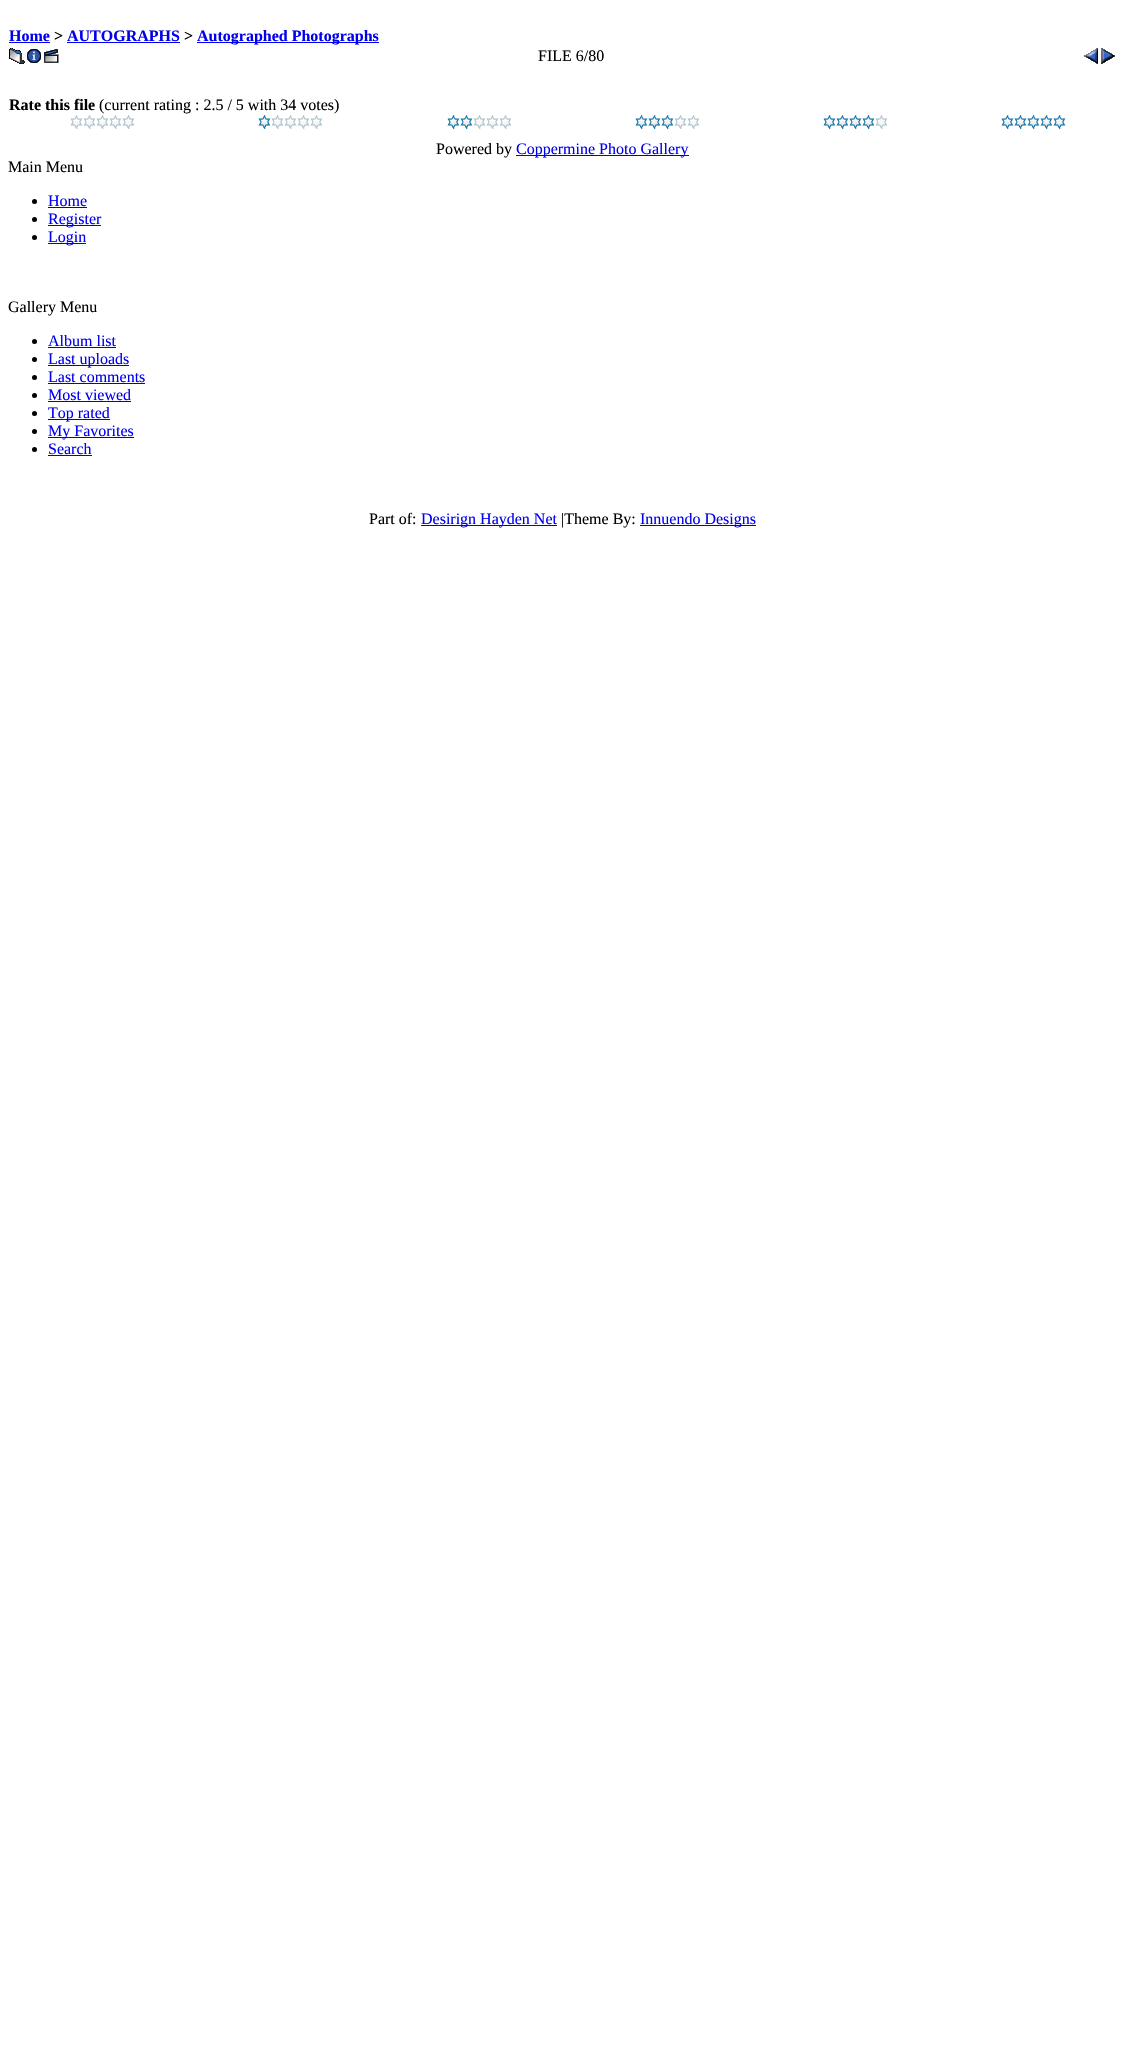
#include "include/core/SkBlurTypes.h"
#include "include/core/SkCanvas.h"
#include "include/core/SkData.h"
#include "include/core/SkFont.h"
#include "include/core/SkFontMgr.h"
#include "include/core/SkImage.h"
#include "include/core/SkMaskFilter.h"
#include "include/core/SkPaint.h"
#include "include/core/SkPathBuilder.h"
#include "include/core/SkTextBlob.h"
#include "include/effects/SkDashPathEffect.h"
#include "include/effects/SkGradientShader.h"
#include "include/utils/SkParsePath.h"

extern sk_sp<SkFontMgr> fontMgr;

void draw(SkCanvas* canvas) {
    SkPaint p;
    p.setAntiAlias(true);
    auto font = [&](const char* family, int weight, float size, bool italic = false) {
        SkFontStyle style(weight, SkFontStyle::kNormal_Width,
            italic ? SkFontStyle::kItalic_Slant : SkFontStyle::kUpright_Slant);
        SkFont result(fontMgr->matchFamilyStyle(family, style), size);
        result.setSubpixel(true);
        return result;
    };
    auto drawPhoto = [&](const char* path, float l, float t, float r, float b) {
        auto image = SkImages::DeferredFromEncodedData(SkData::MakeFromFileName(path));
        canvas->drawImageRect(image, SkRect::MakeLTRB(l, t, r, b), SkSamplingOptions());
    };
    canvas->clear(0xFFFFFFFF);
    auto font1 = font("Liberation Serif", 700, 16);
    p.setColor(0xFF0000EE);
    canvas->drawString("Home", 9, 41, font1, p);
    canvas->drawRect(SkRect::MakeLTRB(9, 42, 50, 43), p);
    p.setColor(0xFF000000);
    canvas->drawString(">", 54, 41, font1, p);
    p.setColor(0xFF0000EE);
    canvas->drawString("AUTOGRAPHS", 67, 41, font1, p);
    canvas->drawRect(SkRect::MakeLTRB(67, 42, 180, 43), p);
    p.setColor(0xFF000000);
    canvas->drawString(">", 184, 41, font1, p);
    p.setColor(0xFF0000EE);
    canvas->drawRect(SkRect::MakeLTRB(197, 42, 379, 43), p);
    canvas->drawString("Autographed Photographs", 197, 41, font1, p);
    drawPhoto("media/1.png", 9, 48, 25, 64);
    drawPhoto("media/2.png", 27, 49, 41, 63);
    drawPhoto("media/3.png", 44, 49, 59, 63);
    auto font2 = font("Liberation Serif", 400, 16);
    p.setColor(0xFF000000);
    canvas->drawString("FILE 6/80", 538, 61, font2, p);
    drawPhoto("media/4.png", 1084, 48, 1098, 64);
    drawPhoto("media/5.png", 1101, 48, 1115, 64);
    canvas->drawString("Rate this file", 9, 110, font1, p);
    canvas->drawString("(current rating : 2.5 / 5 with 34 votes)", 99, 110, font2, p);
    drawPhoto("media/6.png", 70, 115, 135, 129);
    drawPhoto("media/7.png", 258, 115, 323, 129);
    drawPhoto("media/8.png", 447, 115, 512, 129);
    drawPhoto("media/9.png", 635, 115, 700, 129);
    drawPhoto("media/10.png", 823, 115, 888, 129);
    drawPhoto("media/11.png", 1001, 115, 1066, 129);
    canvas->drawString("Powered by", 436, 154, font2, p);
    p.setColor(0xFF0000EE);
    canvas->drawRect(SkRect::MakeLTRB(516, 155, 689, 156), p);
    canvas->drawString("Coppermine Photo Gallery", 516, 154, font2, p);
    p.setColor(0xFF000000);
    canvas->drawString("Main Menu", 8, 172, font2, p);
    canvas->drawCircle(34.5f, 201.5f, 2.5f, p);
    p.setColor(0xFF0000EE);
    canvas->drawString("Home", 48, 206, font2, p);
    canvas->drawRect(SkRect::MakeLTRB(48, 207, 87, 208), p);
    p.setColor(0xFF000000);
    canvas->drawCircle(34.5f, 219.5f, 2.5f, p);
    p.setColor(0xFF0000EE);
    canvas->drawRect(SkRect::MakeLTRB(48, 225, 101, 226), p);
    canvas->drawString("Register", 48, 224, font2, p);
    p.setColor(0xFF000000);
    canvas->drawCircle(34.5f, 237.5f, 2.5f, p);
    p.setColor(0xFF0000EE);
    canvas->drawRect(SkRect::MakeLTRB(48, 243, 86, 244), p);
    canvas->drawString("Login", 48, 242, font2, p);
    p.setColor(0xFF000000);
    canvas->drawString("Gallery Menu", 8, 312, font2, p);
    canvas->drawCircle(34.5f, 341.5f, 2.5f, p);
    p.setColor(0xFF0000EE);
    canvas->drawString("Album list", 48, 346, font2, p);
    canvas->drawRect(SkRect::MakeLTRB(48, 347, 116, 348), p);
    p.setColor(0xFF000000);
    canvas->drawCircle(34.5f, 359.5f, 2.5f, p);
    p.setColor(0xFF0000EE);
    canvas->drawRect(SkRect::MakeLTRB(48, 365, 129, 366), p);
    canvas->drawString("Last uploads", 48, 364, font2, p);
    p.setColor(0xFF000000);
    canvas->drawCircle(34.5f, 377.5f, 2.5f, p);
    p.setColor(0xFF0000EE);
    canvas->drawString("Last comments", 48, 382, font2, p);
    canvas->drawRect(SkRect::MakeLTRB(48, 383, 145, 384), p);
    p.setColor(0xFF000000);
    canvas->drawCircle(34.5f, 395.5f, 2.5f, p);
    p.setColor(0xFF0000EE);
    canvas->drawString("Most viewed", 48, 400, font2, p);
    canvas->drawRect(SkRect::MakeLTRB(48, 401, 131, 402), p);
    p.setColor(0xFF000000);
    canvas->drawCircle(34.5f, 413.5f, 2.5f, p);
    p.setColor(0xFF0000EE);
    canvas->drawRect(SkRect::MakeLTRB(48, 419, 110, 420), p);
    canvas->drawString("Top rated", 48, 418, font2, p);
    p.setColor(0xFF000000);
    canvas->drawCircle(34.5f, 431.5f, 2.5f, p);
    p.setColor(0xFF0000EE);
    canvas->drawRect(SkRect::MakeLTRB(48, 437, 134, 438), p);
    canvas->drawString("My Favorites", 48, 436, font2, p);
    p.setColor(0xFF000000);
    canvas->drawCircle(34.5f, 449.5f, 2.5f, p);
    p.setColor(0xFF0000EE);
    canvas->drawString("Search", 48, 454, font2, p);
    canvas->drawRect(SkRect::MakeLTRB(48, 455, 92, 456), p);
    p.setColor(0xFF000000);
    canvas->drawString("Part of:", 369, 524, font2, p);
    p.setColor(0xFF0000EE);
    canvas->drawRect(SkRect::MakeLTRB(421, 525, 557, 526), p);
    canvas->drawString("Desirign Hayden Net", 421, 524, font2, p);
    p.setColor(0xFF000000);
    canvas->drawString("|Theme By:", 561, 524, font2, p);
    p.setColor(0xFF0000EE);
    canvas->drawRect(SkRect::MakeLTRB(640, 525, 756, 526), p);
    canvas->drawString("Innuendo Designs", 640, 524, font2, p);
}
